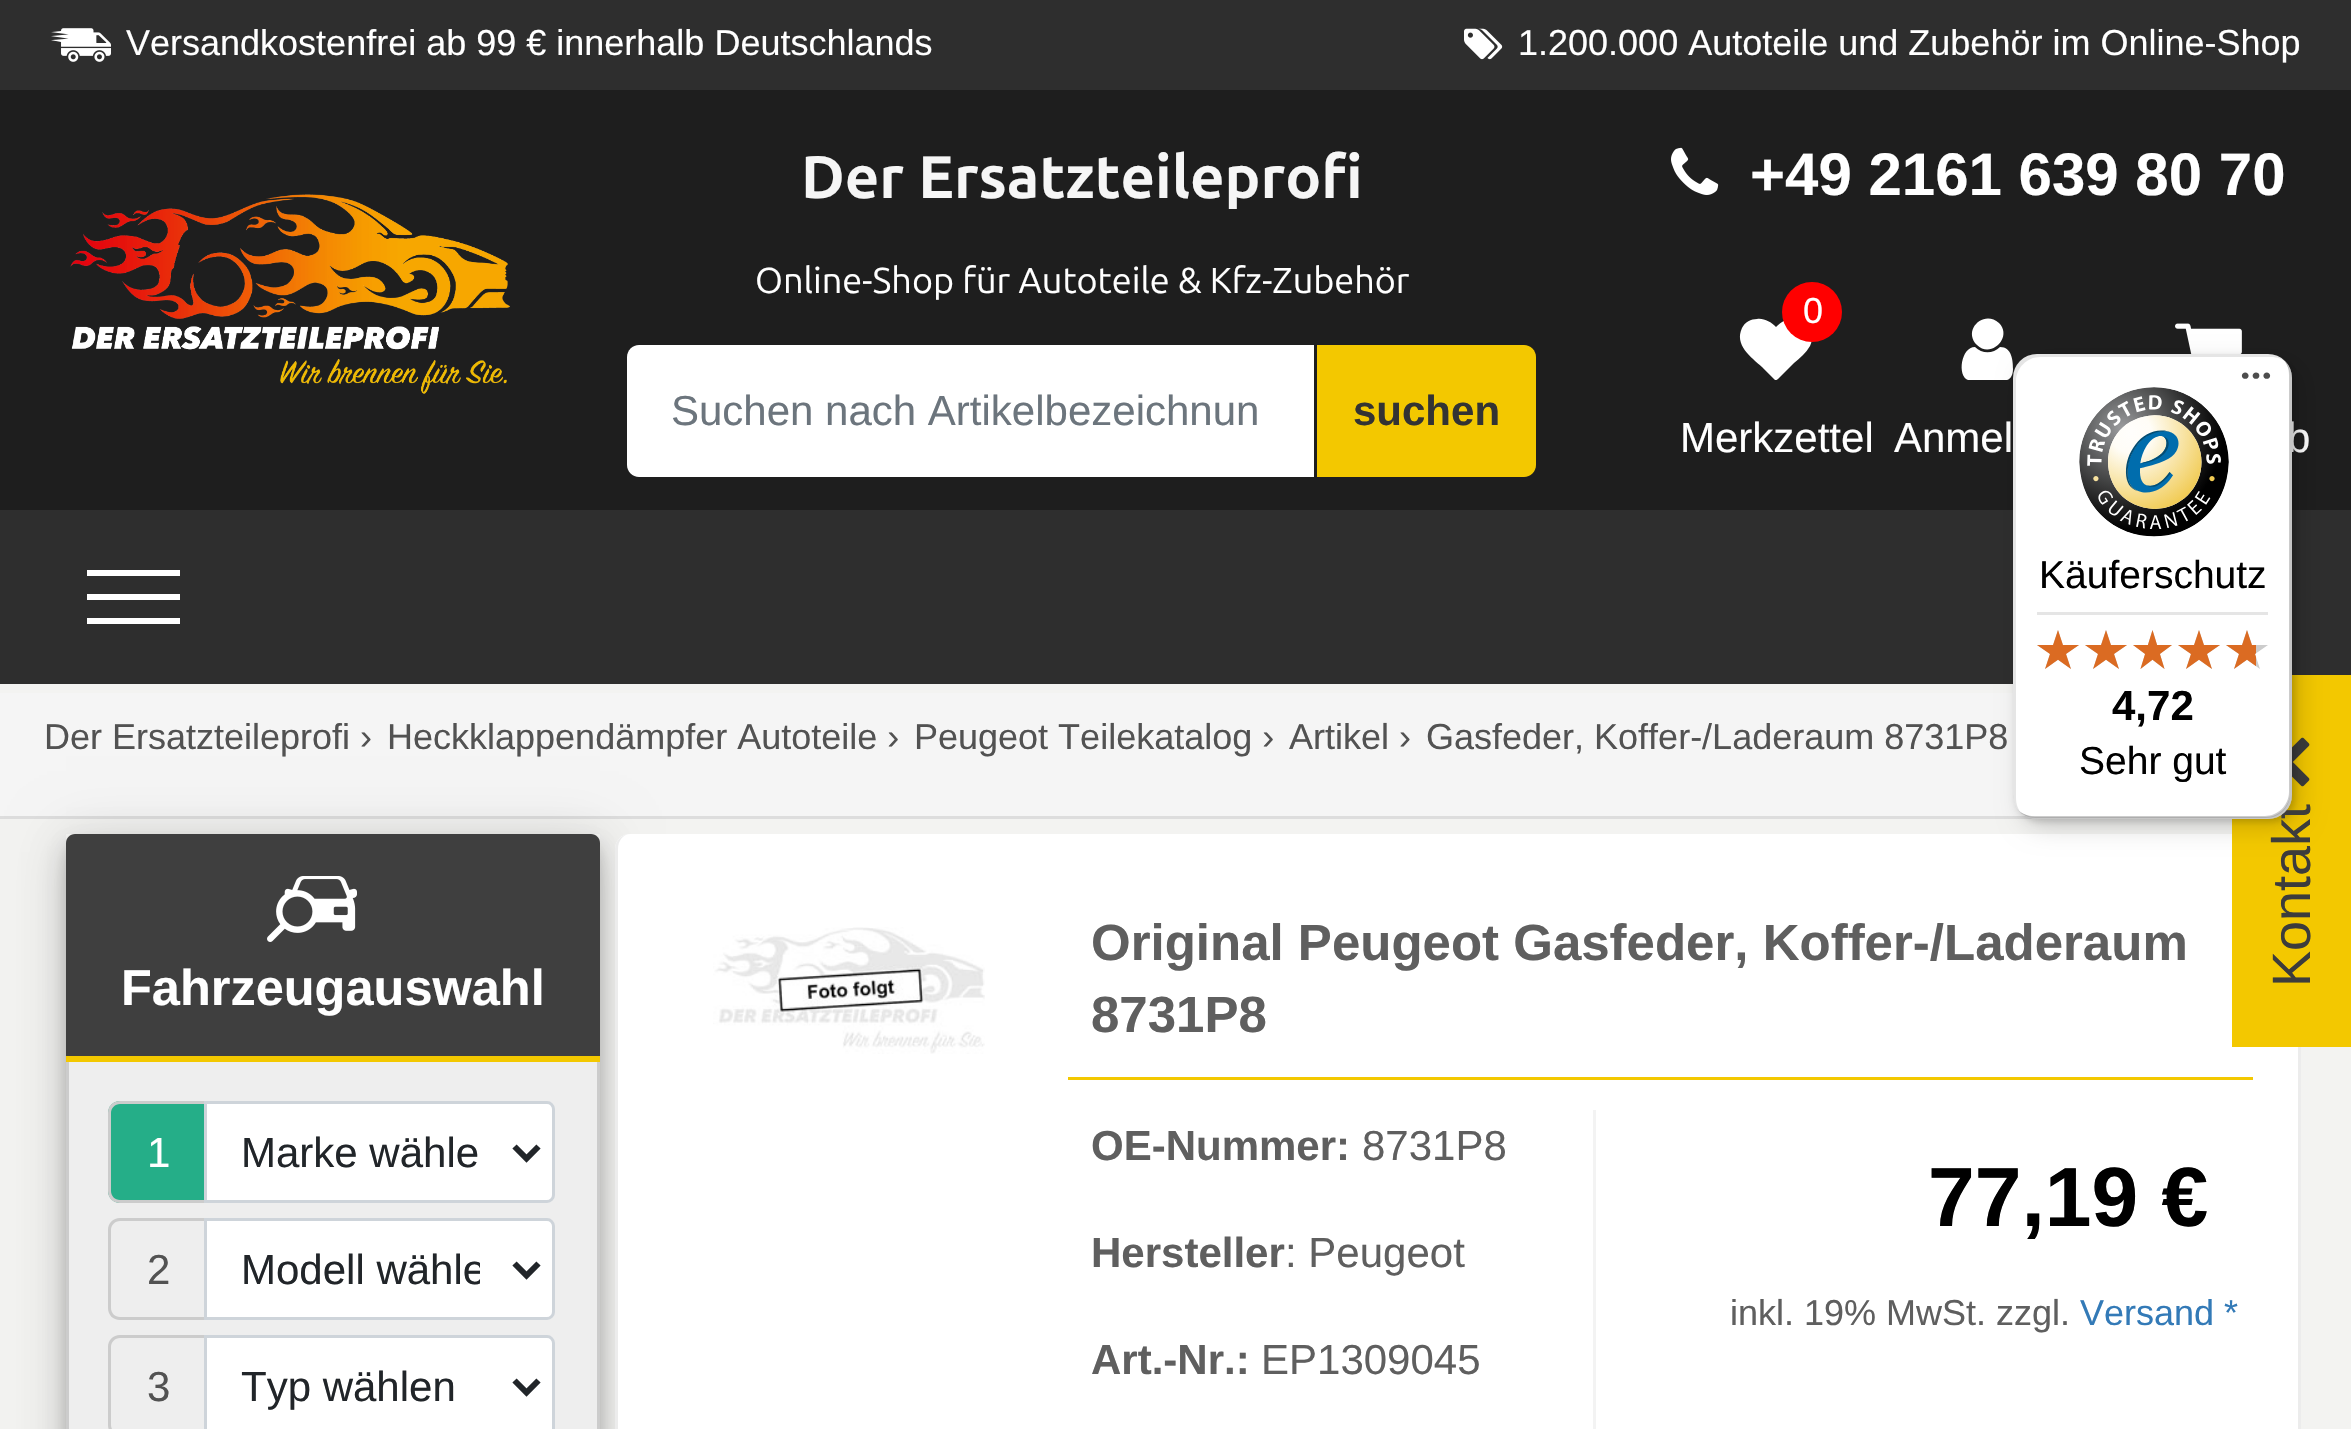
#include "include/core/SkBlurTypes.h"
#include "include/core/SkCanvas.h"
#include "include/core/SkData.h"
#include "include/core/SkFont.h"
#include "include/core/SkFontMgr.h"
#include "include/core/SkImage.h"
#include "include/core/SkMaskFilter.h"
#include "include/core/SkPaint.h"
#include "include/core/SkPathBuilder.h"
#include "include/core/SkTextBlob.h"
#include "include/effects/SkDashPathEffect.h"
#include "include/effects/SkGradientShader.h"
#include "include/utils/SkParsePath.h"

extern sk_sp<SkFontMgr> fontMgr;

void draw(SkCanvas* canvas) {
    SkPaint p;
    p.setAntiAlias(true);
    auto font = [&](const char* family, int weight, float size, bool italic = false) {
        SkFontStyle style(weight, SkFontStyle::kNormal_Width,
            italic ? SkFontStyle::kItalic_Slant : SkFontStyle::kUpright_Slant);
        SkFont result(fontMgr->matchFamilyStyle(family, style), size);
        result.setSubpixel(true);
        return result;
    };
    auto drawPhoto = [&](const char* path, float l, float t, float r, float b) {
        auto image = SkImages::DeferredFromEncodedData(SkData::MakeFromFileName(path));
        canvas->drawImageRect(image, SkRect::MakeLTRB(l, t, r, b), SkSamplingOptions());
    };
    canvas->clear(0xFFF3F3F1);
    p.setColor(0xFF2E2E2E);
    canvas->drawRect(SkRect::MakeLTRB(0, 0, 2351, 90), p);
    drawPhoto("media/1.png", 51, 28, 111, 62);
    auto font1 = font("Liberation Sans", 400, 36);
    p.setColor(0xFFFFFFFF);
    canvas->drawString("Versandkostenfrei ab 99 € innerhalb Deutschlands", 126, 55, font1, p);
    drawPhoto("media/2.png", 1464, 28, 1503, 60);
    canvas->drawString("1.200.000 Autoteile und Zubehör im Online-Shop", 1518, 55, font1, p);
    p.setColor(0xFF1E1E1E);
    canvas->drawRect(SkRect::MakeLTRB(0, 90, 2351, 510), p);
    drawPhoto("media/3.png", 70, 194, 510, 394);
    auto font2 = font("Ubuntu", 700, 60);
    p.setColor(0xFFF6F6F6);
    canvas->drawString("Der Ersatzteileprofi", 801, 198, font2, p);
    auto font3 = font("Ubuntu", 400, 36);
    p.setColor(0xFFFFFFFF);
    canvas->drawString("Online-Shop für Autoteile & Kfz-Zubehör", 755, 293, font3, p);
    canvas->drawPath(SkPathBuilder().moveTo(639, 345).lineTo(1314, 345).lineTo(1314, 477).lineTo(639, 477).cubicTo(632.5f, 477, 627, 471.5f, 627, 465).lineTo(627, 357).cubicTo(627, 350.5f, 632.5f, 345, 639, 345).close().detach(), p);
    auto font4 = font("Liberation Sans", 400, 42);
    p.setColor(0xFF6C757D);
    canvas->drawString("Suchen nach Artikelbezeichnun", 671, 425, font4, p);
    p.setColor(0xFFF3C800);
    canvas->drawPath(SkPathBuilder().moveTo(1317, 345).lineTo(1524, 345).cubicTo(1530.5f, 345, 1536, 350.5f, 1536, 357).lineTo(1536, 465).cubicTo(1536, 471.5f, 1530.5f, 477, 1524, 477).lineTo(1317, 477).close().detach(), p);
    auto font5 = font("Liberation Sans", 700, 42);
    p.setColor(0xFF333333);
    canvas->drawString("suchen", 1353, 425, font5, p);
    drawPhoto("media/4.png", 1671, 147, 1719, 195);
    auto font6 = font("Liberation Sans", 700, 60);
    p.setColor(0xFFFFFFFF);
    canvas->drawString("+49 2161 639 80 70", 1750, 195, font6, p);
    canvas->drawPath(SkPathBuilder().moveTo(1778, 379).cubicTo(1777, 380, 1776, 380, 1775, 380).lineTo(1762, 367).cubicTo(1751, 357, 1734, 345, 1742, 328).cubicTo(1745, 322, 1751, 319, 1757, 319).cubicTo(1764, 318, 1771, 322, 1776, 327).cubicTo(1783, 320, 1794, 315, 1804, 321).cubicTo(1808, 324, 1811, 328, 1812, 333).cubicTo(1812, 338, 1812, 342, 1810, 346).cubicTo(1806, 353, 1800, 358, 1794, 363).close().detach(), p);
    p.setColor(0xFFFF0000);
    canvas->drawCircle(1812, 312, 30, p);
    p.setColor(0xFFFFFFFF);
    canvas->drawString("0", 1803, 323, font1, p);
    canvas->drawString("Merkzettel", 1680, 452, font4, p);
    canvas->drawPath(SkPathBuilder().moveTo(2013, 369).cubicTo(2013, 374, 2011, 379, 2007, 380).lineTo(1976, 380).lineTo(1968, 380).cubicTo(1957, 376, 1961, 347, 1975, 347).cubicTo(1982, 354, 1993, 354, 2000, 347).cubicTo(2012, 347, 2013, 361, 2013, 369).close().moveTo(1999, 323).cubicTo(2013, 337, 1991, 359, 1977, 345).cubicTo(1962, 330, 1984, 309, 1999, 323).close().detach(), p);
    canvas->drawString("Anmel", 1894, 452, font4, p);
    drawPhoto("media/5.png", 2175, 323, 2242, 354);
    canvas->drawString("b", 2287, 452, font4, p);
    {
        const struct { float l, t, r, b; SkColor color; } items[] = {
            {0, 510, 2351, 684, 0xFF2E2E2E},
            {87, 570, 180, 576, 0xFFFFFFFF},
            {87, 594, 180, 600, 0xFFFFFFFF},
            {87, 618, 180, 624, 0xFFFFFFFF},
            {0, 693, 2026, 816, 0xFFF5F5F5},
            {0, 816, 2037, 819, 0xFFDDDDDD},
        };
        for (auto [l, t, r, b, color] : items) {
            p.setColor(color);
            canvas->drawRect(SkRect::MakeLTRB(l, t, r, b), p);
        }
    }
    p.setColor(0xFF525252);
    {
        const struct { const char* s; float x, y; } items[] = {
            {"Der Ersatzteileprofi", 44, 749},
            {"›", 360, 749},
            {"Heckklappendämpfer Autoteile ›", 387, 749},
            {"Peugeot Teilekatalog ›", 914, 749},
            {"Artikel ›", 1289, 749},
            {"Gasfeder, Koffer-/Laderaum 8731P8", 1426, 749},
        };
        for (auto [s, x, y] : items) {
            canvas->drawString(s, x, y, font1, p);
        }
    }
    p.setColor(0x33000000);
    p.setMaskFilter(SkMaskFilter::MakeBlur(kNormal_SkBlurStyle, 7.5f));
    canvas->drawRect(SkRect::MakeLTRB(69, 846, 597, 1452), p);
    p.setMaskFilter(nullptr);
    canvas->save();
    canvas->clipPath(SkPathBuilder(SkPathFillType::kEvenOdd).moveTo(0, 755).lineTo(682, 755).lineTo(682, 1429).lineTo(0, 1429).close().moveTo(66, 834).lineTo(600, 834).lineTo(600, 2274).lineTo(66, 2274).close().detach(), true);
    p.setColor(0x1F000000);
    p.setMaskFilter(SkMaskFilter::MakeBlur(kNormal_SkBlurStyle, 27));
    canvas->drawRect(SkRect::MakeLTRB(66, 837, 600, 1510), p);
    p.setMaskFilter(nullptr);
    canvas->restore();
    p.setColor(0x24000000);
    p.setMaskFilter(SkMaskFilter::MakeBlur(kNormal_SkBlurStyle, 15));
    canvas->drawRect(SkRect::MakeLTRB(66, 852, 600, 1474), p);
    p.setMaskFilter(nullptr);
    p.setColor(0xFFFFFFFF);
    canvas->drawRoundRect(SkRect::MakeLTRB(615, 834, 2301, 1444), 15, 15, p);
    p.setColor(0xFFECECEC);
    canvas->drawPath(SkPathBuilder(SkPathFillType::kEvenOdd).moveTo(630, 834).lineTo(2286, 834).cubicTo(2294, 834, 2301, 841, 2301, 849).lineTo(2301, 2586).cubicTo(2301, 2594, 2294, 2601, 2286, 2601).lineTo(630, 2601).cubicTo(622, 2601, 615, 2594, 615, 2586).lineTo(615, 849).cubicTo(615, 841, 622, 834, 630, 834).close().moveTo(630, 834).lineTo(2286, 834).cubicTo(2293, 834, 2298, 841, 2298, 849).lineTo(2298, 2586).cubicTo(2298, 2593, 2293, 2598, 2286, 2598).lineTo(630, 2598).cubicTo(623, 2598, 618, 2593, 618, 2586).lineTo(618, 849).cubicTo(618, 841, 623, 834, 630, 834).close().detach(), p);
    p.setColor(0xFFF3C800);
    canvas->drawRect(SkRect::MakeLTRB(2232, 675, 2351, 1047), p);
    drawPhoto("media/14.png", 2292, 737, 2310, 787);
    p.setColor(0x26000000);
    p.setMaskFilter(SkMaskFilter::MakeBlur(kNormal_SkBlurStyle, 12));
    canvas->drawRoundRect(SkRect::MakeLTRB(2022, 363, 2301, 828), 24, 24, p);
    p.setMaskFilter(nullptr);
    p.setMaskFilter(SkMaskFilter::MakeBlur(kNormal_SkBlurStyle, 3));
    canvas->drawRoundRect(SkRect::MakeLTRB(2016, 357, 2295, 822), 24, 24, p);
    p.setMaskFilter(nullptr);
    auto font7 = font("Liberation Sans", 400, 54);
    p.setColor(0xFF3C3C3C);
    canvas->save();
    canvas->rotate(-90, 2310, 987);
    canvas->drawString("Kontakt", 2310, 987, font7, p);
    canvas->restore();
    p.setColor(0xFFFFFFFF);
    canvas->drawRoundRect(SkRect::MakeLTRB(2013, 354, 2292, 819), 24, 24, p);
    p.setColor(0x1A000000);
    canvas->drawPath(SkPathBuilder().moveTo(2040, 357).lineTo(2271, 357).cubicTo(2277, 357, 2283, 359, 2287, 363).cubicTo(2282, 358, 2276, 354, 2268, 354).lineTo(2037, 354).cubicTo(2024, 354, 2013, 365, 2013, 378).lineTo(2013, 795).cubicTo(2013, 803, 2017, 809, 2022, 814).cubicTo(2018, 810, 2016, 804, 2016, 798).lineTo(2016, 381).cubicTo(2016, 368, 2027, 357, 2040, 357).close().detach(), p);
    p.setColor(0x33000000);
    canvas->drawPath(SkPathBuilder().moveTo(2018, 810).cubicTo(2023, 815, 2029, 819, 2037, 819).lineTo(2268, 819).cubicTo(2281, 819, 2292, 808, 2292, 795).lineTo(2292, 378).cubicTo(2292, 370, 2288, 364, 2283, 359).cubicTo(2287, 363, 2289, 369, 2289, 375).lineTo(2289, 792).cubicTo(2289, 805, 2278, 816, 2265, 816).lineTo(2034, 816).cubicTo(2028, 816, 2022, 814, 2018, 810).close().detach(), p);
    p.setColor(0x33323232);
    canvas->drawPath(SkPathBuilder().moveTo(2018, 810).cubicTo(2023, 816, 2029, 819, 2037, 819).lineTo(2268, 819).cubicTo(2281, 819, 2292, 808, 2292, 795).lineTo(2292, 378).cubicTo(2292, 370, 2289, 364, 2283, 359).cubicTo(2287, 364, 2290, 370, 2290, 376).lineTo(2290, 793).cubicTo(2290, 806, 2279, 817, 2266, 817).lineTo(2035, 817).cubicTo(2029, 817, 2023, 814, 2018, 810).close().detach(), p);
    p.setColor(0x4DFFFFFF);
    canvas->drawPath(SkPathBuilder().moveTo(2021, 813).cubicTo(2025, 817, 2031, 819, 2037, 819).lineTo(2268, 819).cubicTo(2281, 819, 2292, 808, 2292, 795).lineTo(2292, 378).cubicTo(2292, 371, 2289, 365, 2285, 361).cubicTo(2288, 365, 2290, 370, 2290, 376).lineTo(2290, 794).cubicTo(2290, 807, 2280, 818, 2266, 818).lineTo(2036, 818).cubicTo(2030, 818, 2025, 816, 2021, 813).close().detach(), p);
    drawPhoto("media/6.png", 2241, 372, 2271, 379);
    drawPhoto("media/7.png", 2079, 387, 2229, 537);
    auto font8 = font("Liberation Sans", 400, 39);
    p.setColor(0xFF000000);
    canvas->drawString("Käuferschutz", 2039, 588, font8, p);
    p.setColor(0xFFE5E5E5);
    canvas->drawRect(SkRect::MakeLTRB(2037, 612, 2268, 615), p);
    drawPhoto("media/8.png", 2037, 630, 2079, 669);
    drawPhoto("media/8.png", 2085, 630, 2127, 669);
    drawPhoto("media/9.png", 2133, 630, 2172, 669);
    drawPhoto("media/8.png", 2178, 630, 2220, 669);
    drawPhoto("media/8.png", 2226, 630, 2268, 669);
    drawPhoto("media/10.png", 2037, 630, 2079, 669);
    drawPhoto("media/10.png", 2085, 630, 2127, 669);
    drawPhoto("media/11.png", 2133, 630, 2172, 669);
    drawPhoto("media/10.png", 2178, 630, 2220, 669);
    drawPhoto("media/12.png", 2226, 630, 2256, 669);
    p.setColor(0xFF000000);
    canvas->drawString("4,72", 2112, 720, font5, p);
    canvas->drawString("Sehr gut", 2079, 774, font8, p);
    p.setColor(0xFF3F3F3F);
    canvas->drawPath(SkPathBuilder().moveTo(75, 834).lineTo(591, 834).cubicTo(596, 834, 600, 838, 600, 843).lineTo(600, 1062).lineTo(66, 1062).lineTo(66, 843).cubicTo(66, 838, 70, 834, 75, 834).close().detach(), p);
    p.setColor(0xFFF3C800);
    canvas->drawRect(SkRect::MakeLTRB(66, 1056, 600, 1062), p);
    drawPhoto("media/13.png", 267, 876, 357, 942);
    auto font9 = font("Liberation Sans", 700, 50.5f);
    p.setColor(0xFFFFFFFF);
    canvas->drawString("Fahrzeugauswahl", 121, 1005, font9, p);
    {
        const struct { float l, t, r, b; SkColor color; } items[] = {
            {69, 1062, 597, 1429, 0xFFEEEEEE},
            {597, 1062, 600, 1429, 0xFFCCCCCC},
            {66, 1062, 69, 1429, 0xFFCCCCCC},
        };
        for (auto [l, t, r, b, color] : items) {
            p.setColor(color);
            canvas->drawRect(SkRect::MakeLTRB(l, t, r, b), p);
        }
    }
    p.setColor(0xFF25AE88);
    canvas->drawPath(SkPathBuilder().moveTo(120, 1101).lineTo(207, 1101).lineTo(207, 1203).lineTo(120, 1203).cubicTo(113.5f, 1203, 108, 1197.5f, 108, 1191).lineTo(108, 1113).cubicTo(108, 1106.5f, 113.5f, 1101, 120, 1101).close().detach(), p);
    p.setColor(0xFFCCCCCC);
    canvas->drawPath(SkPathBuilder(SkPathFillType::kEvenOdd).moveTo(120, 1101).lineTo(207, 1101).lineTo(207, 1203).lineTo(120, 1203).cubicTo(113, 1203, 108, 1198, 108, 1191).lineTo(108, 1113).cubicTo(108, 1106, 113, 1101, 120, 1101).close().moveTo(120, 1104).lineTo(207, 1104).lineTo(207, 1200).lineTo(120, 1200).cubicTo(115, 1200, 111, 1196, 111, 1191).lineTo(111, 1113).cubicTo(111, 1108, 115, 1104, 120, 1104).close().detach(), p);
    p.setColor(0xFFFFFFFF);
    canvas->drawString("1", 147, 1167, font4, p);
    canvas->drawPath(SkPathBuilder().moveTo(205.5f, 1102.5f).lineTo(547, 1102.5f).cubicTo(550.5f, 1102.5f, 553.5f, 1105.5f, 553.5f, 1109).lineTo(553.5f, 1195).cubicTo(553.5f, 1198.5f, 550.5f, 1201.5f, 547, 1201.5f).lineTo(205.5f, 1201.5f).close().detach(), p);
    p.setStyle(SkPaint::kStroke_Style);
    p.setStrokeWidth(3);
    p.setColor(0xFFCED4DA);
    canvas->drawPath(SkPathBuilder().moveTo(205.5f, 1102.5f).lineTo(547, 1102.5f).cubicTo(550.5f, 1102.5f, 553.5f, 1105.5f, 553.5f, 1109).lineTo(553.5f, 1195).cubicTo(553.5f, 1198.5f, 550.5f, 1201.5f, 547, 1201.5f).lineTo(205.5f, 1201.5f).close().detach(), p);
    p.setStrokeWidth(6);
    p.setColor(0xFF212529);
    canvas->drawPath(SkPathBuilder().moveTo(514.5f, 1146.5f).lineTo(526.5f, 1158.5f).lineTo(538.5f, 1146.5f).detach(), p);
    p.setStyle(SkPaint::kFill_Style);
    canvas->drawString("Marke wähle", 241, 1167, font4, p);
    p.setColor(0xFFCCCCCC);
    canvas->drawPath(SkPathBuilder(SkPathFillType::kEvenOdd).moveTo(120, 1218).lineTo(207, 1218).lineTo(207, 1320).lineTo(120, 1320).cubicTo(113, 1320, 108, 1315, 108, 1308).lineTo(108, 1230).cubicTo(108, 1223, 113, 1218, 120, 1218).close().moveTo(120, 1221).lineTo(207, 1221).lineTo(207, 1317).lineTo(120, 1317).cubicTo(115, 1317, 111, 1313, 111, 1308).lineTo(111, 1230).cubicTo(111, 1225, 115, 1221, 120, 1221).close().detach(), p);
    p.setColor(0xFF525252);
    canvas->drawString("2", 147, 1284, font4, p);
    p.setColor(0xFFFFFFFF);
    canvas->drawPath(SkPathBuilder().moveTo(205.5f, 1219.5f).lineTo(547, 1219.5f).cubicTo(550.5f, 1219.5f, 553.5f, 1222.5f, 553.5f, 1226).lineTo(553.5f, 1312).cubicTo(553.5f, 1315.5f, 550.5f, 1318.5f, 547, 1318.5f).lineTo(205.5f, 1318.5f).close().detach(), p);
    p.setStyle(SkPaint::kStroke_Style);
    p.setStrokeWidth(3);
    p.setColor(0xFFCED4DA);
    canvas->drawPath(SkPathBuilder().moveTo(205.5f, 1219.5f).lineTo(547, 1219.5f).cubicTo(550.5f, 1219.5f, 553.5f, 1222.5f, 553.5f, 1226).lineTo(553.5f, 1312).cubicTo(553.5f, 1315.5f, 550.5f, 1318.5f, 547, 1318.5f).lineTo(205.5f, 1318.5f).close().detach(), p);
    p.setStrokeWidth(6);
    p.setColor(0xFF212529);
    canvas->drawPath(SkPathBuilder().moveTo(514.5f, 1263.5f).lineTo(526.5f, 1275.5f).lineTo(538.5f, 1263.5f).detach(), p);
    canvas->save();
    canvas->clipRect(SkRect::MakeLTRB(240, 1242, 480, 1296));
    p.setStyle(SkPaint::kFill_Style);
    canvas->drawString("Modell wähle", 241, 1284, font4, p);
    canvas->restore();
    p.setColor(0xFFCCCCCC);
    canvas->drawPath(SkPathBuilder(SkPathFillType::kEvenOdd).moveTo(120, 1335).lineTo(207, 1335).lineTo(207, 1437).lineTo(120, 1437).cubicTo(113, 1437, 108, 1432, 108, 1425).lineTo(108, 1347).cubicTo(108, 1340, 113, 1335, 120, 1335).close().moveTo(120, 1338).lineTo(207, 1338).lineTo(207, 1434).lineTo(120, 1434).cubicTo(115, 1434, 111, 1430, 111, 1425).lineTo(111, 1347).cubicTo(111, 1342, 115, 1338, 120, 1338).close().detach(), p);
    p.setColor(0xFF525252);
    canvas->drawString("3", 147, 1401, font4, p);
    p.setColor(0xFFFFFFFF);
    canvas->drawPath(SkPathBuilder().moveTo(205.5f, 1336.5f).lineTo(547, 1336.5f).cubicTo(550.5f, 1336.5f, 553.5f, 1339.5f, 553.5f, 1343).lineTo(553.5f, 1429).cubicTo(553.5f, 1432.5f, 550.5f, 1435.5f, 547, 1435.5f).lineTo(205.5f, 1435.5f).close().detach(), p);
    p.setStyle(SkPaint::kStroke_Style);
    p.setStrokeWidth(3);
    p.setColor(0xFFCED4DA);
    canvas->drawPath(SkPathBuilder().moveTo(205.5f, 1336.5f).lineTo(547, 1336.5f).cubicTo(550.5f, 1336.5f, 553.5f, 1339.5f, 553.5f, 1343).lineTo(553.5f, 1429).cubicTo(553.5f, 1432.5f, 550.5f, 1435.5f, 547, 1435.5f).lineTo(205.5f, 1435.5f).close().detach(), p);
    p.setStrokeWidth(6);
    p.setColor(0xFF212529);
    canvas->drawPath(SkPathBuilder().moveTo(514.5f, 1380.5f).lineTo(526.5f, 1392.5f).lineTo(538.5f, 1380.5f).detach(), p);
    p.setStyle(SkPaint::kFill_Style);
    canvas->drawString("Typ wählen", 241, 1401, font4, p);
    drawPhoto("media/15.png", 713, 927, 985, 1054);
    p.setColor(0xFFF3C800);
    canvas->drawRect(SkRect::MakeLTRB(1068, 1077, 2253, 1080), p);
    auto font10 = font("Liberation Sans", 700, 51);
    p.setColor(0xFF5F5F5F);
    canvas->drawString("Original Peugeot Gasfeder, Koffer-/Laderaum", 1091, 960, font10, p);
    canvas->drawString("8731P8", 1091, 1032, font10, p);
    canvas->drawString("OE-Nummer:", 1091, 1160, font5, p);
    canvas->drawString("8731P8", 1362, 1160, font4, p);
    canvas->drawString("Hersteller", 1091, 1267, font5, p);
    canvas->drawString(": Peugeot", 1285, 1267, font4, p);
    canvas->drawString("Art.-Nr.:", 1091, 1374, font5, p);
    canvas->drawString("EP1309045", 1261, 1374, font4, p);
    p.setColor(0xFFF3F3F3);
    canvas->drawRect(SkRect::MakeLTRB(1593, 1110, 1596, 1429), p);
    auto font11 = font("Liberation Sans", 700, 84);
    p.setColor(0xFF000000);
    canvas->drawString("77,19 €", 1928, 1226, font11, p);
    p.setColor(0xFF5F5F5F);
    canvas->drawString("inkl. 19% MwSt. zzgl.", 1730, 1325, font1, p);
    p.setColor(0xFF337AB7);
    canvas->drawString("Versand *", 2080, 1325, font1, p);
}
